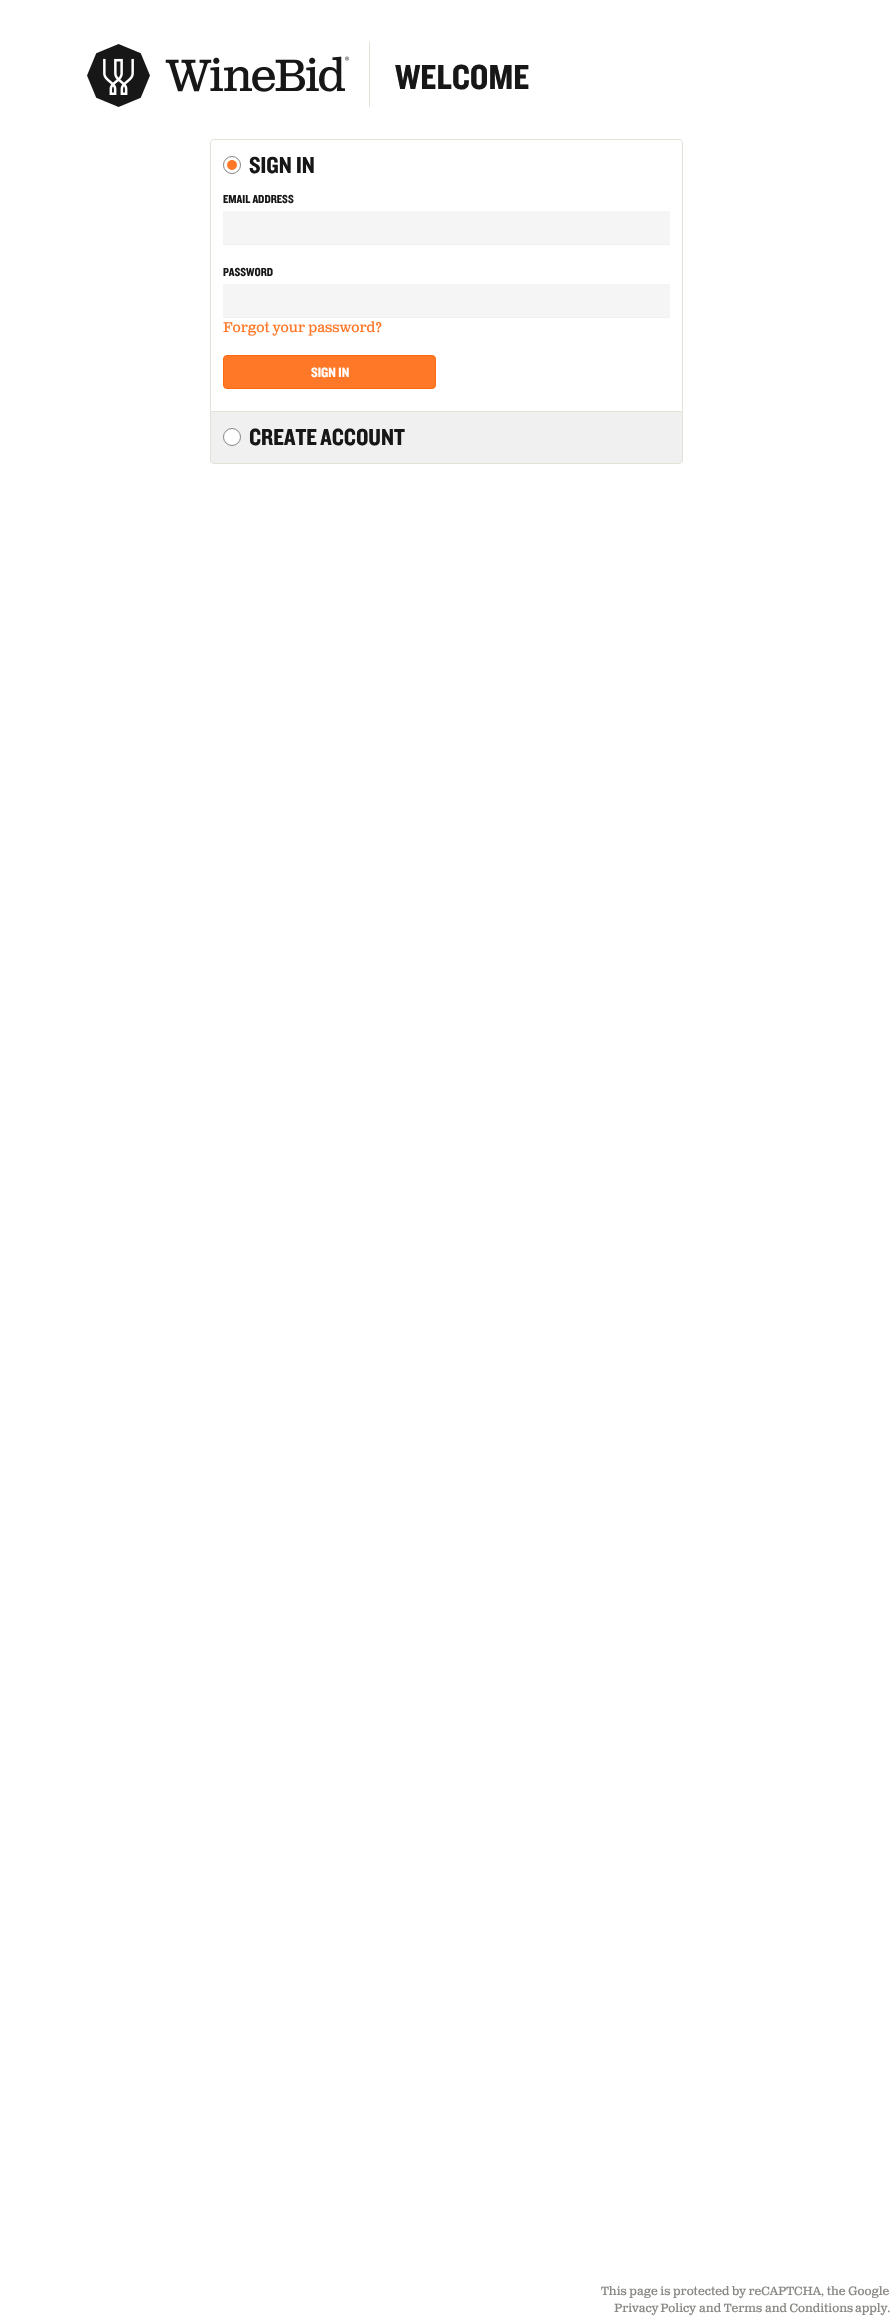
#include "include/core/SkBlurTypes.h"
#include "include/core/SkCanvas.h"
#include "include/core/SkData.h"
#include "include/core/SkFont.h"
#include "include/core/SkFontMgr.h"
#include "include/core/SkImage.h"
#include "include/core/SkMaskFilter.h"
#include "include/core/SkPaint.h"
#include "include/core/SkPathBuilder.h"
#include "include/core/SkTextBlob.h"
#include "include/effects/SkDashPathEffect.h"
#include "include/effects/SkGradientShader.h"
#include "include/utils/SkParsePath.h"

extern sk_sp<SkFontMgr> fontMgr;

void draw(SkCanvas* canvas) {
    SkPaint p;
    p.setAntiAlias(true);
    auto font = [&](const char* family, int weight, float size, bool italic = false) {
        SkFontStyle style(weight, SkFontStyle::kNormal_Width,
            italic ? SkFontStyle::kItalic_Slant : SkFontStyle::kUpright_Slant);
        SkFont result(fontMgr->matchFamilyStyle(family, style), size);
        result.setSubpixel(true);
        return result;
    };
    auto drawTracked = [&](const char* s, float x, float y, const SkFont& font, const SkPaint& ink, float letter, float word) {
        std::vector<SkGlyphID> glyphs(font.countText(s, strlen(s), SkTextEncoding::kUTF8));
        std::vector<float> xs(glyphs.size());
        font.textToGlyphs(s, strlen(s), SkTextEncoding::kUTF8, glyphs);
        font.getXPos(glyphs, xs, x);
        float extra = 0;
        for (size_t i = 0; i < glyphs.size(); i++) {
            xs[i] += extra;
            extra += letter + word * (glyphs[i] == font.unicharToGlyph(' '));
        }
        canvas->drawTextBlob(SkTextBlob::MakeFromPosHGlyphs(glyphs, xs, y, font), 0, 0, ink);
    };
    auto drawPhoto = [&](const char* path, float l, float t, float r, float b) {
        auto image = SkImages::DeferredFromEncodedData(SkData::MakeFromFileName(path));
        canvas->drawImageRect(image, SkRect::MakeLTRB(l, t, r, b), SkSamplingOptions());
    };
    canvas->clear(0xFFFFFFFF);
    drawPhoto("media/1.png", 87, 44, 349, 107);
    p.setColor(0xFFE4E1D9);
    canvas->drawRect(SkRect::MakeLTRB(369, 42, 370, 107), p);
    auto font1 = font("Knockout", 400, 36);
    p.setColor(0xFF181717);
    canvas->drawString("WELCOME", 395, 89, font1, p);
    p.setColor(0xFFE4E1D9);
    canvas->drawPath(SkPathBuilder(SkPathFillType::kEvenOdd).moveTo(214, 139).lineTo(679, 139).cubicTo(681, 139, 683, 141, 683, 143).lineTo(683, 411).lineTo(210, 411).lineTo(210, 143).cubicTo(210, 141, 212, 139, 214, 139).close().moveTo(214, 140).lineTo(679, 140).cubicTo(681, 140, 682, 141, 682, 143).lineTo(682, 411).lineTo(211, 411).lineTo(211, 143).cubicTo(211, 141, 212, 140, 214, 140).close().detach(), p);
    p.setStyle(SkPaint::kStroke_Style);
    p.setStrokeWidth(1);
    p.setColor(0xFF888783);
    canvas->drawCircle(232, 165, 8.5f, p);
    p.setStyle(SkPaint::kFill_Style);
    p.setColor(0xFFFF7828);
    canvas->drawCircle(232, 165, 5, p);
    auto font2 = font("Knockout", 400, 24);
    p.setColor(0xFF181717);
    canvas->drawString("SIGN IN", 249, 173, font2, p);
    auto font3 = font("Knockout", 400, 12);
    canvas->drawString("EMAIL ADDRESS", 223, 203, font3, p);
    p.setColor(0xFFF5F5F5);
    canvas->drawRect(SkRect::MakeLTRB(223, 211, 670, 244), p);
    p.setColor(0xFFF0F0F0);
    canvas->drawRect(SkRect::MakeLTRB(223, 244, 670, 245), p);
    p.setColor(0xFF181717);
    canvas->drawString("PASSWORD", 223, 276, font3, p);
    p.setColor(0xFFF5F5F5);
    canvas->drawRect(SkRect::MakeLTRB(223, 284, 670, 317), p);
    p.setColor(0xFFF0F0F0);
    canvas->drawRect(SkRect::MakeLTRB(223, 317, 670, 318), p);
    auto font4 = font("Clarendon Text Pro", 400, 14);
    p.setColor(0xFFFF7828);
    canvas->drawString("Forgot your password?", 223, 332, font4, p);
    canvas->drawRoundRect(SkRect::MakeLTRB(223.5f, 355.5f, 435.5f, 388.5f), 3.5f, 3.5f, p);
    p.setStyle(SkPaint::kStroke_Style);
    p.setColor(0xFFFF680E);
    canvas->drawRoundRect(SkRect::MakeLTRB(223.5f, 355.5f, 435.5f, 388.5f), 3.5f, 3.5f, p);
    auto font5 = font("Knockout", 400, 14);
    p.setStyle(SkPaint::kFill_Style);
    p.setColor(0xFFFFFFFF);
    canvas->drawString("SIGN IN", 311, 377, font5, p);
    p.setColor(0xFFF0F0F0);
    canvas->drawPath(SkPathBuilder().moveTo(210.5f, 411.5f).lineTo(682.5f, 411.5f).lineTo(682.5f, 460).cubicTo(682.5f, 462, 681, 463.5f, 679, 463.5f).lineTo(214, 463.5f).cubicTo(212, 463.5f, 210.5f, 462, 210.5f, 460).close().detach(), p);
    p.setStyle(SkPaint::kStroke_Style);
    p.setColor(0xFFE4E1D9);
    canvas->drawPath(SkPathBuilder().moveTo(210.5f, 411.5f).lineTo(682.5f, 411.5f).lineTo(682.5f, 460).cubicTo(682.5f, 462, 681, 463.5f, 679, 463.5f).lineTo(214, 463.5f).cubicTo(212, 463.5f, 210.5f, 462, 210.5f, 460).close().detach(), p);
    p.setStyle(SkPaint::kFill_Style);
    p.setColor(0xFFFFFFFF);
    canvas->drawCircle(232, 437, 8.5f, p);
    p.setStyle(SkPaint::kStroke_Style);
    p.setColor(0xFF888783);
    canvas->drawCircle(232, 437, 8.5f, p);
    p.setStyle(SkPaint::kFill_Style);
    p.setColor(0xFF181717);
    drawTracked("CREATE ACCOUNT", 249, 445, font2, p, 0, -1);
    auto font6 = font("Clarendon Text Pro", 400, 11.9f);
    p.setColor(0xFF888783);
    canvas->drawString("This page is protected by reCAPTCHA, the Google", 601, 2295, font6, p);
    drawTracked("Privacy Policy", 614, 2312, font6, p, 0, -1);
    canvas->drawString("and Terms and Conditions", 699, 2312, font6, p);
    canvas->drawString("apply.", 855, 2312, font6, p);
}
